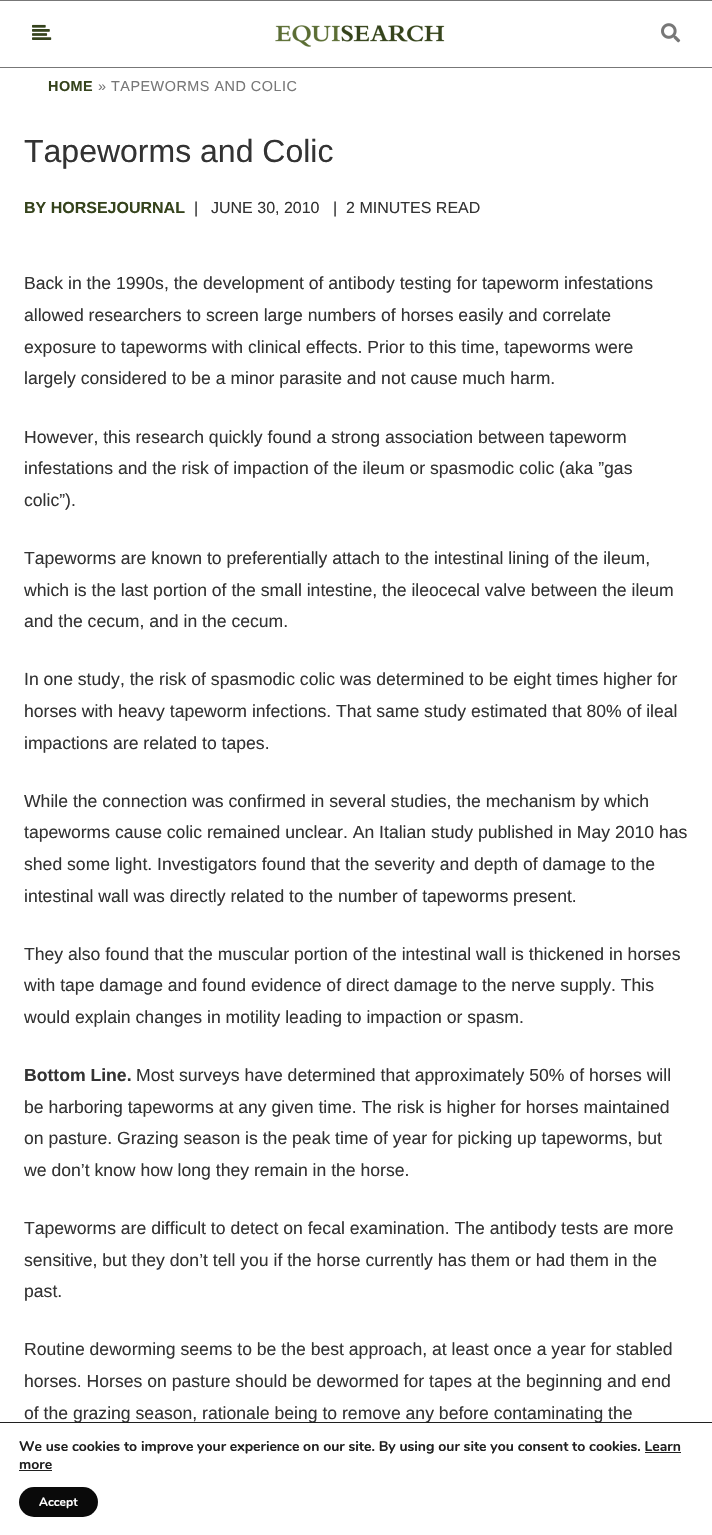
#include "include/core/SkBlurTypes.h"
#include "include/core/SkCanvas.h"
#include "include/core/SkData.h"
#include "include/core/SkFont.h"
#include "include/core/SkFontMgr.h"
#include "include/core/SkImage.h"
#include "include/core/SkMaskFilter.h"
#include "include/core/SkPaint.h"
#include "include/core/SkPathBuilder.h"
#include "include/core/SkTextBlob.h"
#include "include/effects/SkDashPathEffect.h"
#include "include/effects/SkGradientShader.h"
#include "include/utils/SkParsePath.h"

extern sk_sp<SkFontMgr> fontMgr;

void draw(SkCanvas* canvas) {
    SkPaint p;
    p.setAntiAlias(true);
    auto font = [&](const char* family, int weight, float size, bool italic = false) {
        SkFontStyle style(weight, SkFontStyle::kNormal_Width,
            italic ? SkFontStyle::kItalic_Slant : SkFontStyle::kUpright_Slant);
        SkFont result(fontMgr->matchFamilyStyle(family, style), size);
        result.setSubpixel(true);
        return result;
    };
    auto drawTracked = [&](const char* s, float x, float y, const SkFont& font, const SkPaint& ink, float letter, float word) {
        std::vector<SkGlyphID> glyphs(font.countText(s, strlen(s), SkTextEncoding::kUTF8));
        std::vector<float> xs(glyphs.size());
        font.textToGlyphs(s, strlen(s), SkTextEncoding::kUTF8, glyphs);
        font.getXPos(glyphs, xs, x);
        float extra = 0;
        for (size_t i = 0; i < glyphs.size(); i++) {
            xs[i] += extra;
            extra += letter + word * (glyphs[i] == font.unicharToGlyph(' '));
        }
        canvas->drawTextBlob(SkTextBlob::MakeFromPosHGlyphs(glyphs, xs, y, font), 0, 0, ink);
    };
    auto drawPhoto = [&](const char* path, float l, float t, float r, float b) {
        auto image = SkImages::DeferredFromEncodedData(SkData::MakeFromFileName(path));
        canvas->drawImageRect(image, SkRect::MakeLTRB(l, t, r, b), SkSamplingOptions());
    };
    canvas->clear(0xFFFFFFFF);
    p.setColor(0xFF777777);
    canvas->drawRect(SkRect::MakeLTRB(0, 0, 712, 1), p);
    canvas->drawRect(SkRect::MakeLTRB(0, 67, 712, 68), p);
    drawPhoto("media/1.png", 32, 24, 52, 40);
    drawPhoto("media/2.png", 275, 25, 445, 47);
    drawPhoto("media/3.png", 661, 23, 681, 43);
    auto font1 = font("Liberation Sans", 700, 14.4f);
    p.setColor(0xFF35431C);
    drawTracked("HOME", 48, 91, font1, p, 0.5f, 0);
    auto font2 = font("Liberation Sans", 400, 14.4f);
    p.setColor(0xFF777777);
    drawTracked("» TAPEWORMS AND COLIC", 98, 91, font2, p, 0.5f, 0);
    auto font3 = font("Liberation Sans", 400, 32);
    p.setColor(0xFF333333);
    canvas->drawString("Tapeworms and Colic", 24, 162, font3, p);
    auto font4 = font("Liberation Sans", 700, 16);
    p.setColor(0xFF35431C);
    canvas->drawString("BY HORSEJOURNAL", 24, 213, font4, p);
    auto font5 = font("Liberation Sans", 400, 16);
    p.setColor(0xFF333333);
    {
        const struct { const char* s; float x, y; } items[] = {
            {"|", 194, 213},
            {"JUNE 30, 2010", 211, 213},
            {"|  2 MINUTES READ", 333, 213},
        };
        for (auto [s, x, y] : items) {
            canvas->drawString(s, x, y, font5, p);
        }
    }
    auto font6 = font("Liberation Sans", 400, 17.6f);
    {
        const struct { const char* s; float x, y; } items[] = {
            {"Back in the 1990s, the development of antibody testing for tapeworm infestations", 24, 289},
            {"allowed researchers to screen large numbers of horses easily and correlate", 24, 321},
            {"exposure to tapeworms with clinical effects. Prior to this time, tapeworms were", 24, 353},
            {"largely considered to be a minor parasite and not cause much harm.", 24, 384},
            {"However, this research quickly found a strong association between tapeworm", 24, 443},
            {"infestations and the risk of impaction of the ileum or spasmodic colic (aka ”gas", 24, 474},
            {"colic”).", 24, 506},
            {"Tapeworms are known to preferentially attach to the intestinal lining of the ileum,", 24, 564},
            {"which is the last portion of the small intestine, the ileocecal valve between the ileum", 24, 596},
            {"and the cecum, and in the cecum.", 24, 627},
            {"In one study, the risk of spasmodic colic was determined to be eight times higher for", 24, 685},
            {"horses with heavy tapeworm infections. That same study estimated that 80% of ileal", 24, 717},
            {"impactions are related to tapes.", 24, 749},
            {"While the connection was confirmed in several studies, the mechanism by which", 24, 807},
            {"tapeworms cause colic remained unclear. An Italian study published in May 2010 has", 24, 838},
            {"shed some light. Investigators found that the severity and depth of damage to the", 24, 870},
            {"intestinal wall was directly related to the number of tapeworms present.", 24, 902},
            {"They also found that the muscular portion of the intestinal wall is thickened in horses", 24, 960},
            {"with tape damage and found evidence of direct damage to the nerve supply. This", 24, 991},
            {"would explain changes in motility leading to impaction or spasm.", 24, 1023},
        };
        for (auto [s, x, y] : items) {
            canvas->drawString(s, x, y, font6, p);
        }
    }
    auto font7 = font("Liberation Sans", 700, 17.6f);
    canvas->drawString("Bottom Line.", 24, 1081, font7, p);
    {
        const struct { const char* s; float x, y; } items[] = {
            {"Most surveys have determined that approximately 50% of horses will", 136, 1081},
            {"be harboring tapeworms at any given time. The risk is higher for horses maintained", 24, 1113},
            {"on pasture. Grazing season is the peak time of year for picking up tapeworms, but", 24, 1144},
            {"we don’t know how long they remain in the horse.", 24, 1176},
            {"Tapeworms are difficult to detect on fecal examination. The antibody tests are more", 24, 1234},
            {"sensitive, but they don’t tell you if the horse currently has them or had them in the", 24, 1266},
            {"past.", 24, 1297},
            {"Routine deworming seems to be the best approach, at least once a year for stabled", 24, 1355},
            {"horses. Horses on pasture should be dewormed for tapes at the beginning and end", 24, 1387},
            {"of the grazing season, rationale being to remove any before contaminating the", 24, 1419},
        };
        for (auto [s, x, y] : items) {
            canvas->drawString(s, x, y, font6, p);
        }
    }
    p.setColor(0xFF202020);
    canvas->drawRect(SkRect::MakeLTRB(0, 1422, 712, 1423), p);
    auto font8 = font("Nunito", 700, 14);
    canvas->drawString("We use cookies to improve your experience on our site. By using our site you consent to cookies. Learn", 19, 1451, font8, p);
    canvas->drawRect(SkRect::MakeLTRB(645, 1452, 681, 1453), p);
    canvas->drawString("more", 19, 1469, font8, p);
    canvas->drawRect(SkRect::MakeLTRB(19, 1470, 52, 1471), p);
    p.setColor(0xFF0A0A0A);
    canvas->drawRoundRect(SkRect::MakeLTRB(19, 1487, 98, 1517), 15, 15, p);
    auto font9 = font("Nunito", 700, 12);
    p.setColor(0xFFFFFFFF);
    canvas->drawString("Accept", 39, 1506, font9, p);
}
